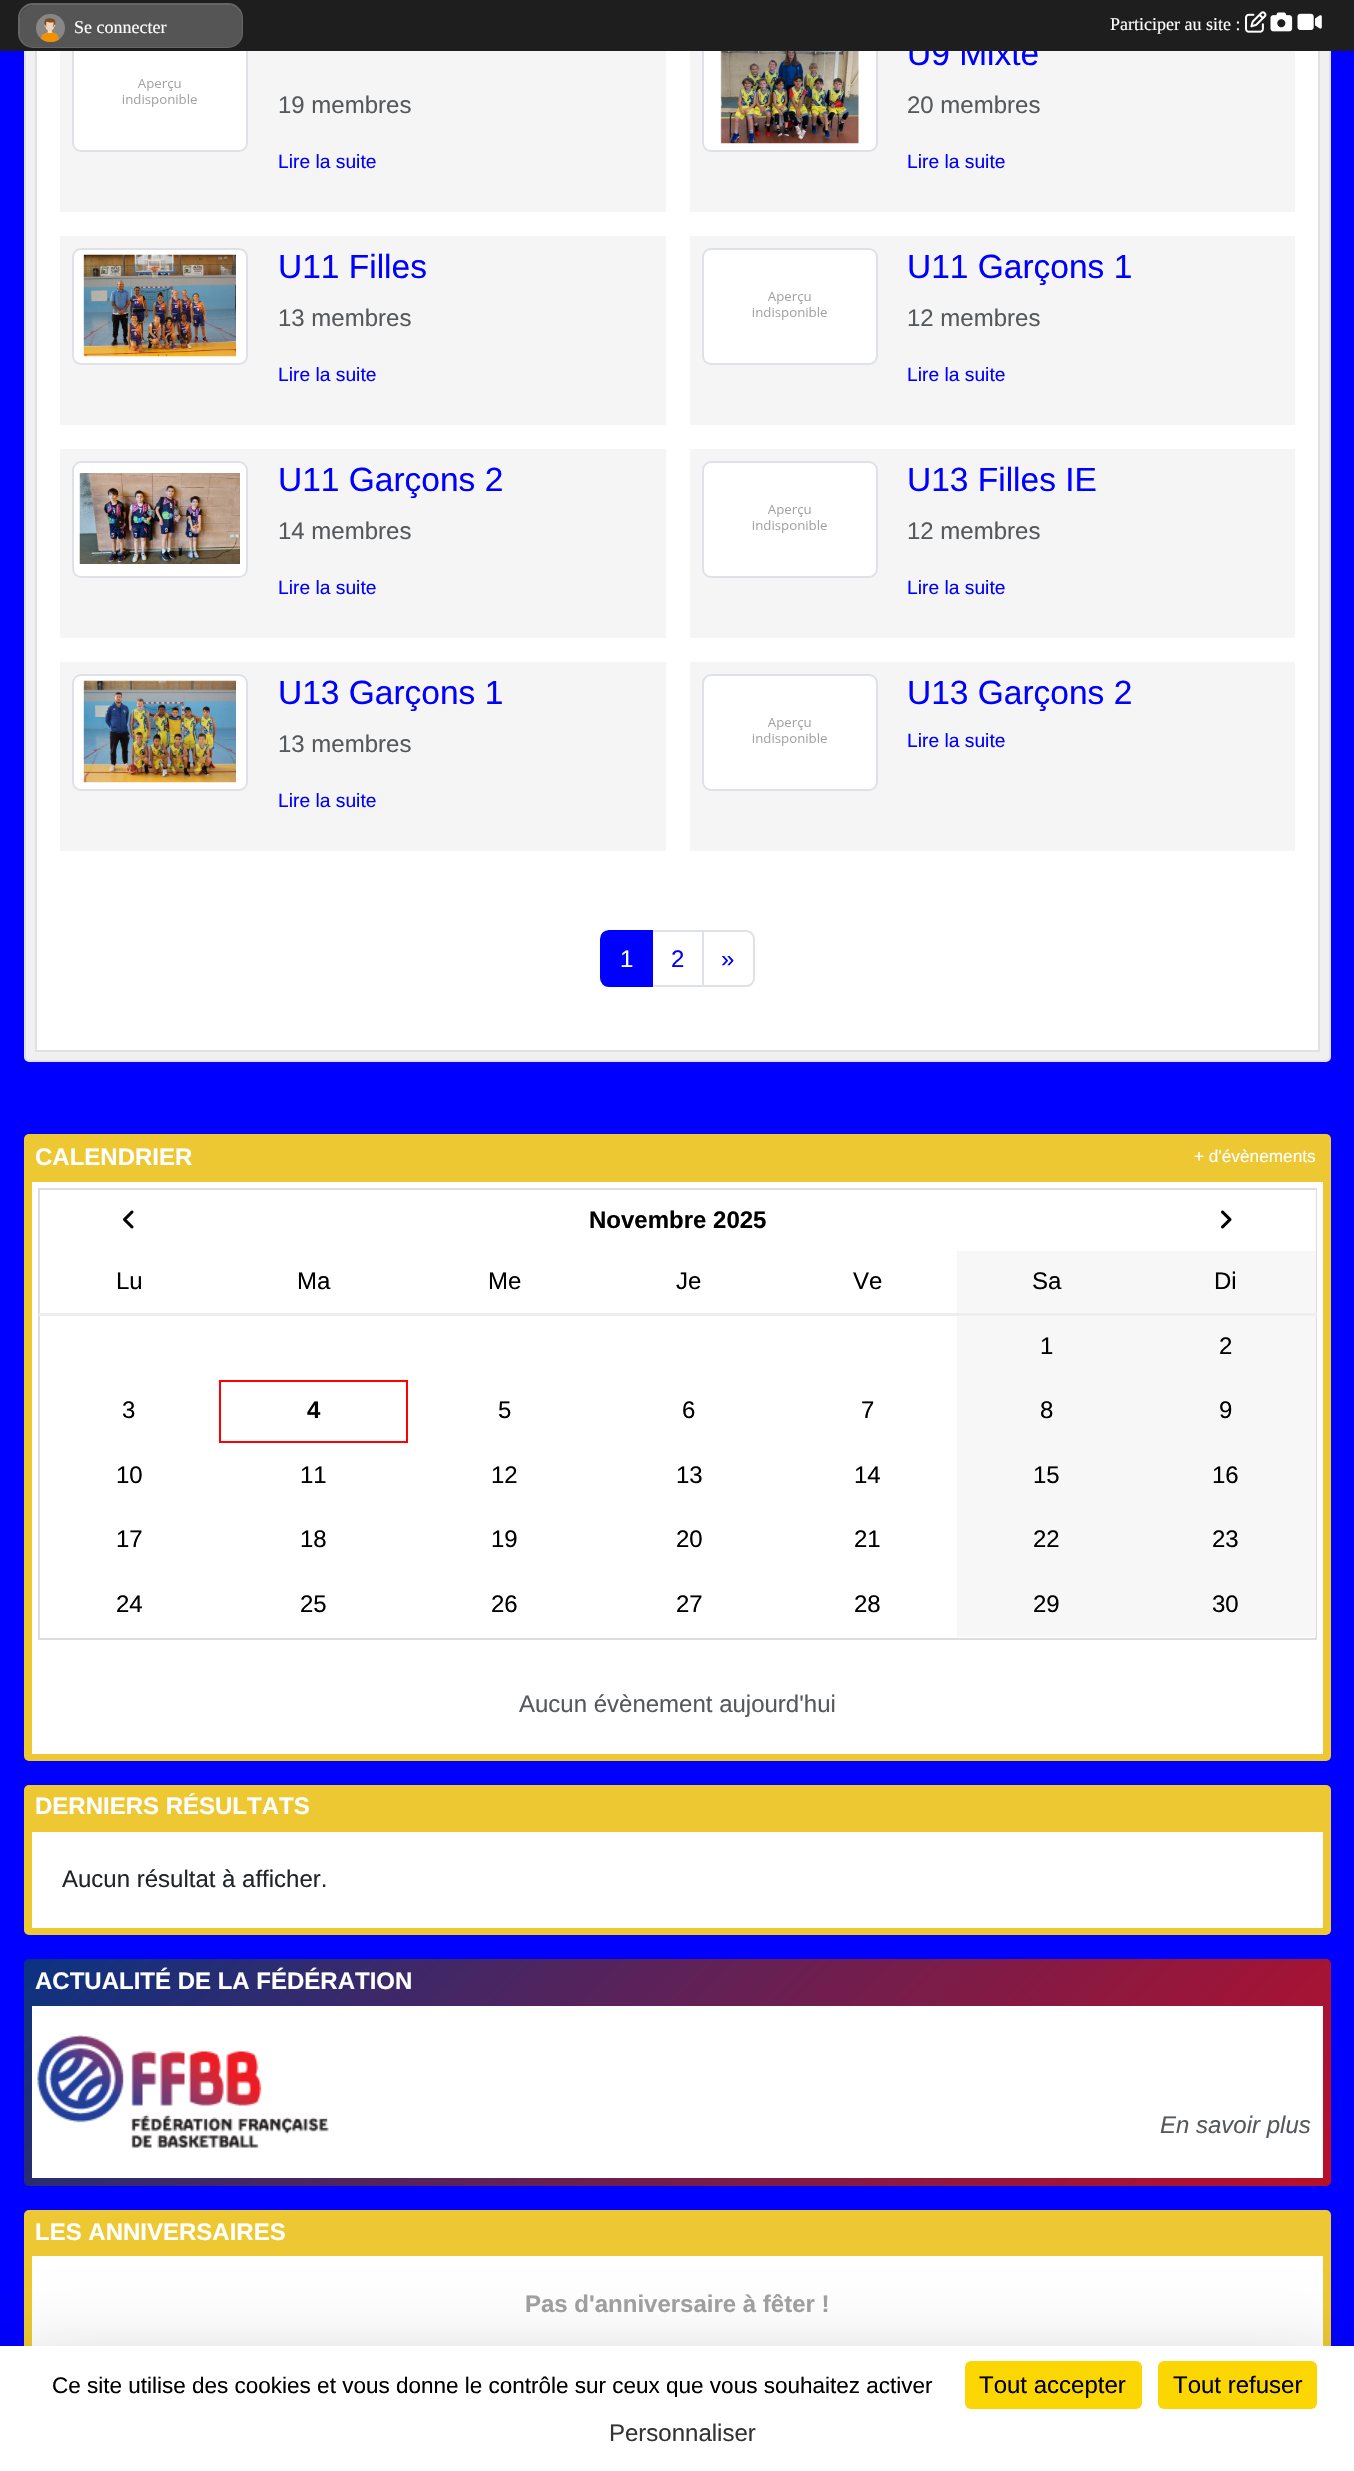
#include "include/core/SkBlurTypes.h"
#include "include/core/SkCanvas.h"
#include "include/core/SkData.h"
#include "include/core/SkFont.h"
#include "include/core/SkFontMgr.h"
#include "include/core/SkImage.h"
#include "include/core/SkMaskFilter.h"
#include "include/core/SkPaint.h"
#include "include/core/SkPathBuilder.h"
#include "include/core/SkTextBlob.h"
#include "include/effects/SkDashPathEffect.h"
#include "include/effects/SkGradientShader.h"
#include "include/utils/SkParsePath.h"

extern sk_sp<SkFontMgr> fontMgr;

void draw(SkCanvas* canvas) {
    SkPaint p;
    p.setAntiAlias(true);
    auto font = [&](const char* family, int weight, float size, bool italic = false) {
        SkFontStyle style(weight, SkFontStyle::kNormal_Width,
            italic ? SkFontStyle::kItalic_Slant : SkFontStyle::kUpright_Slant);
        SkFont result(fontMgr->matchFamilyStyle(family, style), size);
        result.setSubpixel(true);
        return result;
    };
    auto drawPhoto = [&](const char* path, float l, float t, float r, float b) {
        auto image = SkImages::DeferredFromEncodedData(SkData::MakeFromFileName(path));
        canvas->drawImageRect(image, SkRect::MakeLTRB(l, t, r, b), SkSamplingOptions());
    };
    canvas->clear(0xFF0000FF);
    p.setColor(0xFFF0F0F0);
    canvas->drawRoundRect(SkRect::MakeLTRB(25, -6, 1330, 1061), 4, 4, p);
    p.setStyle(SkPaint::kStroke_Style);
    p.setStrokeWidth(2);
    p.setColor(0xFFE1E1E1);
    canvas->drawRoundRect(SkRect::MakeLTRB(25, -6, 1330, 1061), 4, 4, p);
    p.setStyle(SkPaint::kFill_Style);
    p.setColor(0xFFFFFFFF);
    canvas->drawRect(SkRect::MakeLTRB(37, 51, 1318, 1050), p);
    p.setStyle(SkPaint::kStroke_Style);
    p.setColor(0xFFE1E1E1);
    canvas->drawRect(SkRect::MakeLTRB(36, -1, 1319, 1051), p);
    p.setStyle(SkPaint::kFill_Style);
    p.setColor(0xFFF5F5F5);
    canvas->drawRect(SkRect::MakeLTRB(60, 51, 666, 212), p);
    p.setColor(0xFFFFFFFF);
    canvas->drawRoundRect(SkRect::MakeLTRB(73, 36, 247, 151), 8, 8, p);
    p.setStyle(SkPaint::kStroke_Style);
    p.setColor(0xFFDEE2E6);
    canvas->drawRoundRect(SkRect::MakeLTRB(73, 36, 247, 151), 8, 8, p);
    p.setStyle(SkPaint::kFill_Style);
    p.setColor(0xFFF5F5F5);
    canvas->drawRect(SkRect::MakeLTRB(690, 51, 1295, 212), p);
    p.setColor(0xFFFFFFFF);
    canvas->drawRoundRect(SkRect::MakeLTRB(703, 36, 877, 151), 8, 8, p);
    p.setStyle(SkPaint::kStroke_Style);
    p.setColor(0xFFDEE2E6);
    canvas->drawRoundRect(SkRect::MakeLTRB(703, 36, 877, 151), 8, 8, p);
    auto font1 = font("Liberation Sans", 400, 33.5f);
    p.setStyle(SkPaint::kFill_Style);
    p.setColor(0xFF0000FF);
    canvas->drawString("U9 Mixte", 907, 65, font1, p);
    p.setColor(0xFF1E1E1E);
    canvas->drawRect(SkRect::MakeLTRB(0, 0, 1354, 51), p);
    p.setColor(0xFF333333);
    canvas->drawRoundRect(SkRect::MakeLTRB(19, 4, 242, 47), 14, 14, p);
    p.setStyle(SkPaint::kStroke_Style);
    p.setColor(0xFF666666);
    canvas->drawRoundRect(SkRect::MakeLTRB(19, 4, 242, 47), 14, 14, p);
    p.setStyle(SkPaint::kFill_Style);
    p.setColor(0xFF555555);
    canvas->drawRoundRect(SkRect::MakeLTRB(20, 5, 242, 47), 14, 14, p);
    drawPhoto("media/1.png", 36, 14, 65, 42);
    auto font2 = font("Liberation Serif", 400, 18);
    p.setColor(0xFFFFFFFF);
    canvas->drawString("Se connecter", 74, 33, font2, p);
    canvas->drawString("Participer au site :", 1110, 30, font2, p);
    drawPhoto("media/2.png", 1245, 11, 1267, 33);
    drawPhoto("media/3.png", 1270, 12, 1293, 32);
    drawPhoto("media/4.png", 1297, 13, 1322, 30);
    drawPhoto("media/5.png", 122, 79, 197, 107);
    auto font3 = font("Liberation Sans", 400, 24);
    p.setColor(0xFF56595C);
    canvas->drawString("19 membres", 278, 113, font3, p);
    auto font4 = font("Liberation Sans", 400, 19.25f);
    p.setColor(0xFF0000FF);
    canvas->drawString("Lire la suite", 278, 168, font4, p);
    drawPhoto("media/6.png", 720, 51, 859, 144);
    p.setColor(0xFF56595C);
    canvas->drawString("20 membres", 907, 113, font3, p);
    p.setColor(0xFF0000FF);
    canvas->drawString("Lire la suite", 907, 168, font4, p);
    p.setColor(0xFFF5F5F5);
    canvas->drawRect(SkRect::MakeLTRB(60, 236, 666, 425), p);
    p.setColor(0xFFFFFFFF);
    canvas->drawRoundRect(SkRect::MakeLTRB(73, 249, 247, 364), 8, 8, p);
    p.setStyle(SkPaint::kStroke_Style);
    p.setColor(0xFFDEE2E6);
    canvas->drawRoundRect(SkRect::MakeLTRB(73, 249, 247, 364), 8, 8, p);
    drawPhoto("media/7.png", 82, 254, 236, 357);
    p.setStyle(SkPaint::kFill_Style);
    p.setColor(0xFF0000FF);
    canvas->drawString("U11 Filles", 278, 278, font1, p);
    p.setColor(0xFF56595C);
    canvas->drawString("13 membres", 278, 326, font3, p);
    p.setColor(0xFF0000FF);
    canvas->drawString("Lire la suite", 278, 381, font4, p);
    p.setColor(0xFFF5F5F5);
    canvas->drawRect(SkRect::MakeLTRB(690, 236, 1295, 425), p);
    p.setColor(0xFFFFFFFF);
    canvas->drawRoundRect(SkRect::MakeLTRB(703, 249, 877, 364), 8, 8, p);
    p.setStyle(SkPaint::kStroke_Style);
    p.setColor(0xFFDEE2E6);
    canvas->drawRoundRect(SkRect::MakeLTRB(703, 249, 877, 364), 8, 8, p);
    drawPhoto("media/5.png", 752, 292, 827, 320);
    p.setStyle(SkPaint::kFill_Style);
    p.setColor(0xFF0000FF);
    canvas->drawString("U11 Garçons 1", 907, 278, font1, p);
    p.setColor(0xFF56595C);
    canvas->drawString("12 membres", 907, 326, font3, p);
    p.setColor(0xFF0000FF);
    canvas->drawString("Lire la suite", 907, 381, font4, p);
    p.setColor(0xFFF5F5F5);
    canvas->drawRect(SkRect::MakeLTRB(60, 449, 666, 638), p);
    p.setColor(0xFFFFFFFF);
    canvas->drawRoundRect(SkRect::MakeLTRB(73, 462, 247, 577), 8, 8, p);
    p.setStyle(SkPaint::kStroke_Style);
    p.setColor(0xFFDEE2E6);
    canvas->drawRoundRect(SkRect::MakeLTRB(73, 462, 247, 577), 8, 8, p);
    drawPhoto("media/8.png", 79, 473, 240, 564);
    p.setStyle(SkPaint::kFill_Style);
    p.setColor(0xFF0000FF);
    canvas->drawString("U11 Garçons 2", 278, 491, font1, p);
    p.setColor(0xFF56595C);
    canvas->drawString("14 membres", 278, 539, font3, p);
    p.setColor(0xFF0000FF);
    canvas->drawString("Lire la suite", 278, 594, font4, p);
    p.setColor(0xFFF5F5F5);
    canvas->drawRect(SkRect::MakeLTRB(690, 449, 1295, 638), p);
    p.setColor(0xFFFFFFFF);
    canvas->drawRoundRect(SkRect::MakeLTRB(703, 462, 877, 577), 8, 8, p);
    p.setStyle(SkPaint::kStroke_Style);
    p.setColor(0xFFDEE2E6);
    canvas->drawRoundRect(SkRect::MakeLTRB(703, 462, 877, 577), 8, 8, p);
    drawPhoto("media/5.png", 752, 505, 827, 533);
    p.setStyle(SkPaint::kFill_Style);
    p.setColor(0xFF0000FF);
    canvas->drawString("U13 Filles IE", 907, 491, font1, p);
    p.setColor(0xFF56595C);
    canvas->drawString("12 membres", 907, 539, font3, p);
    p.setColor(0xFF0000FF);
    canvas->drawString("Lire la suite", 907, 594, font4, p);
    p.setColor(0xFFF5F5F5);
    canvas->drawRect(SkRect::MakeLTRB(60, 662, 666, 851), p);
    p.setColor(0xFFFFFFFF);
    canvas->drawRoundRect(SkRect::MakeLTRB(73, 675, 247, 790), 8, 8, p);
    p.setStyle(SkPaint::kStroke_Style);
    p.setColor(0xFFDEE2E6);
    canvas->drawRoundRect(SkRect::MakeLTRB(73, 675, 247, 790), 8, 8, p);
    drawPhoto("media/9.png", 83, 680, 236, 783);
    p.setStyle(SkPaint::kFill_Style);
    p.setColor(0xFF0000FF);
    canvas->drawString("U13 Garçons 1", 278, 704, font1, p);
    p.setColor(0xFF56595C);
    canvas->drawString("13 membres", 278, 752, font3, p);
    p.setColor(0xFF0000FF);
    canvas->drawString("Lire la suite", 278, 807, font4, p);
    p.setColor(0xFFF5F5F5);
    canvas->drawRect(SkRect::MakeLTRB(690, 662, 1295, 851), p);
    p.setColor(0xFFFFFFFF);
    canvas->drawRoundRect(SkRect::MakeLTRB(703, 675, 877, 790), 8, 8, p);
    p.setStyle(SkPaint::kStroke_Style);
    p.setColor(0xFFDEE2E6);
    canvas->drawRoundRect(SkRect::MakeLTRB(703, 675, 877, 790), 8, 8, p);
    drawPhoto("media/5.png", 752, 718, 827, 746);
    p.setStyle(SkPaint::kFill_Style);
    p.setColor(0xFF0000FF);
    canvas->drawString("U13 Garçons 2", 907, 704, font1, p);
    canvas->drawString("Lire la suite", 907, 747, font4, p);
    p.setStyle(SkPaint::kStroke_Style);
    p.setColor(0xFFDEE2E6);
    canvas->drawRect(SkRect::MakeLTRB(652, 931, 703, 986), p);
    p.setStyle(SkPaint::kFill_Style);
    p.setColor(0xFF0000FF);
    canvas->drawPath(SkPathBuilder().moveTo(609, 931).lineTo(652, 931).lineTo(652, 986).lineTo(609, 986).cubicTo(604.5f, 986, 601, 982.5f, 601, 978).lineTo(601, 939).cubicTo(601, 934.5f, 604.5f, 931, 609, 931).close().detach(), p);
    p.setStyle(SkPaint::kStroke_Style);
    canvas->drawPath(SkPathBuilder().moveTo(609, 931).lineTo(652, 931).lineTo(652, 986).lineTo(609, 986).cubicTo(604.5f, 986, 601, 982.5f, 601, 978).lineTo(601, 939).cubicTo(601, 934.5f, 604.5f, 931, 609, 931).close().detach(), p);
    p.setStyle(SkPaint::kFill_Style);
    p.setColor(0xFFFFFFFF);
    canvas->drawString("1", 620, 967, font3, p);
    p.setColor(0xFF0000FF);
    canvas->drawString("2", 671, 967, font3, p);
    p.setColor(0xFFFFFFFF);
    canvas->drawPath(SkPathBuilder().moveTo(703, 931).lineTo(746, 931).cubicTo(750.5f, 931, 754, 934.5f, 754, 939).lineTo(754, 978).cubicTo(754, 982.5f, 750.5f, 986, 746, 986).lineTo(703, 986).close().detach(), p);
    p.setStyle(SkPaint::kStroke_Style);
    p.setColor(0xFFDEE2E6);
    canvas->drawPath(SkPathBuilder().moveTo(703, 931).lineTo(746, 931).cubicTo(750.5f, 931, 754, 934.5f, 754, 939).lineTo(754, 978).cubicTo(754, 982.5f, 750.5f, 986, 746, 986).lineTo(703, 986).close().detach(), p);
    p.setStyle(SkPaint::kFill_Style);
    p.setColor(0xFF0000FF);
    canvas->drawString("»", 721, 967, font3, p);
    p.setColor(0xFFEDC832);
    canvas->drawRoundRect(SkRect::MakeLTRB(24, 1134, 1331, 1761), 5, 5, p);
    auto font5 = font("Liberation Sans", 700, 24);
    p.setColor(0xFFFFFFFF);
    canvas->drawString("CALENDRIER", 35, 1165, font5, p);
    canvas->drawRect(SkRect::MakeLTRB(32, 1182, 1323, 1754), p);
    p.setStyle(SkPaint::kStroke_Style);
    p.setColor(0xFFDDDDDD);
    canvas->drawRect(SkRect::MakeLTRB(39, 1189, 1316, 1639), p);
    p.setStyle(SkPaint::kFill_Style);
    p.setColor(0xFFEEEEEE);
    canvas->drawRect(SkRect::MakeLTRB(39, 1313, 1317, 1316), p);
    drawPhoto("media/10.png", 123, 1210, 134, 1229);
    p.setColor(0xFF000000);
    canvas->drawString("Novembre 2025", 589, 1228, font5, p);
    p.setColor(0xFFFFFFFF);
    canvas->drawRect(SkRect::MakeLTRB(1315, 1190, 1316, 1251), p);
    drawPhoto("media/11.png", 1221, 1210, 1232, 1229);
    p.setColor(0xFF000000);
    {
        const struct { const char* s; float x, y; } items[] = {
            {"Lu", 116, 1289},
            {"Ma", 297, 1289},
            {"Me", 488, 1289},
            {"Je", 676, 1289},
            {"Ve", 853, 1289},
        };
        for (auto [s, x, y] : items) {
            canvas->drawString(s, x, y, font3, p);
        }
    }
    p.setColor(0xFFF7F7F7);
    canvas->drawRect(SkRect::MakeLTRB(957, 1251, 1316, 1313), p);
    p.setColor(0xFF000000);
    canvas->drawString("Sa", 1032, 1289, font3, p);
    canvas->drawString("Di", 1214, 1289, font3, p);
    p.setColor(0xFFF7F7F7);
    canvas->drawRect(SkRect::MakeLTRB(957, 1316, 1316, 1379), p);
    p.setColor(0xFF000000);
    {
        const struct { const char* s; float x, y; } items[] = {
            {"1", 1040, 1354},
            {"2", 1219, 1354},
            {"3", 122, 1418},
        };
        for (auto [s, x, y] : items) {
            canvas->drawString(s, x, y, font3, p);
        }
    }
    p.setStyle(SkPaint::kStroke_Style);
    p.setColor(0xFFFF0000);
    canvas->drawRect(SkRect::MakeLTRB(220, 1381, 407, 1442), p);
    p.setStyle(SkPaint::kFill_Style);
    p.setColor(0xFF000000);
    canvas->drawString("4", 307, 1418, font5, p);
    {
        const struct { const char* s; float x, y; } items[] = {
            {"5", 498, 1418},
            {"6", 682, 1418},
            {"7", 861, 1418},
        };
        for (auto [s, x, y] : items) {
            canvas->drawString(s, x, y, font3, p);
        }
    }
    p.setColor(0xFFF7F7F7);
    canvas->drawRect(SkRect::MakeLTRB(957, 1379, 1316, 1443), p);
    p.setColor(0xFF000000);
    {
        const struct { const char* s; float x, y; } items[] = {
            {"8", 1040, 1418},
            {"9", 1219, 1418},
            {"10", 116, 1483},
            {"11", 300, 1483},
            {"12", 491, 1483},
            {"13", 676, 1483},
            {"14", 854, 1483},
        };
        for (auto [s, x, y] : items) {
            canvas->drawString(s, x, y, font3, p);
        }
    }
    p.setColor(0xFFF7F7F7);
    canvas->drawRect(SkRect::MakeLTRB(957, 1443, 1316, 1508), p);
    p.setColor(0xFF000000);
    {
        const struct { const char* s; float x, y; } items[] = {
            {"15", 1033, 1483},
            {"16", 1212, 1483},
            {"17", 116, 1547},
            {"18", 300, 1547},
            {"19", 491, 1547},
            {"20", 676, 1547},
            {"21", 854, 1547},
        };
        for (auto [s, x, y] : items) {
            canvas->drawString(s, x, y, font3, p);
        }
    }
    p.setColor(0xFFF7F7F7);
    canvas->drawRect(SkRect::MakeLTRB(957, 1508, 1316, 1572), p);
    p.setColor(0xFF000000);
    {
        const struct { const char* s; float x, y; } items[] = {
            {"22", 1033, 1547},
            {"23", 1212, 1547},
            {"24", 116, 1612},
            {"25", 300, 1612},
            {"26", 491, 1612},
            {"27", 676, 1612},
            {"28", 854, 1612},
        };
        for (auto [s, x, y] : items) {
            canvas->drawString(s, x, y, font3, p);
        }
    }
    p.setColor(0xFFF7F7F7);
    canvas->drawRect(SkRect::MakeLTRB(957, 1572, 1316, 1637), p);
    p.setColor(0xFF000000);
    canvas->drawString("29", 1033, 1612, font3, p);
    canvas->drawString("30", 1212, 1612, font3, p);
    p.setColor(0xFF56595C);
    canvas->drawString("Aucun évènement aujourd'hui", 519, 1712, font3, p);
    auto font6 = font("Liberation Sans", 400, 17.25f);
    p.setColor(0xFFFFFFFF);
    canvas->drawString("+ d'évènements", 1194, 1162, font6, p);
    p.setColor(0xFFEDC832);
    canvas->drawRoundRect(SkRect::MakeLTRB(24, 1785, 1331, 1935), 5, 5, p);
    canvas->save();
    canvas->clipRect(SkRect::MakeLTRB(32, 1793, 1323, 1832));
    p.setColor(0xFFFFFFFF);
    canvas->drawString("DERNIERS RÉSULTATS", 35, 1814, font5, p);
    canvas->restore();
    canvas->drawRect(SkRect::MakeLTRB(32, 1832, 1323, 1928), p);
    p.setColor(0xFF212529);
    canvas->drawString("Aucun résultat à afficher.", 62, 1887, font3, p);
    p.setColor(0xFF0A3281);
    canvas->drawRoundRect(SkRect::MakeLTRB(24, 1959, 1331, 2186), 5, 5, p);
    {
        const SkColor colors[] = {0xDBD5091B, 0xFF0A3281};
        const float stops[] = {0, 1};
        const SkPoint ends[] = {{1061, 2456}, {294, 1689}};
        p.setShader(SkGradientShader::MakeLinear(ends, colors, stops, 2, SkTileMode::kClamp));
        p.setAlpha(255);
    }
    canvas->drawRoundRect(SkRect::MakeLTRB(24, 1959, 1331, 2186), 5, 5, p);
    p.setShader(nullptr);
    p.setColor(0xFFFFFFFF);
    canvas->drawString("ACTUALITÉ DE LA FÉDÉRATION", 35, 1989, font5, p);
    canvas->drawRect(SkRect::MakeLTRB(32, 2006, 1323, 2178), p);
    drawPhoto("media/12.png", 37, 2035, 329, 2148);
    auto font7 = font("Liberation Sans", 400, 24, true);
    p.setColor(0xFF56595C);
    canvas->drawString("En savoir plus", 1160, 2133, font7, p);
    p.setColor(0xFFEDC832);
    canvas->drawRoundRect(SkRect::MakeLTRB(24, 2210, 1331, 2360), 5, 5, p);
    p.setColor(0xFFFFFFFF);
    canvas->drawString("LES ANNIVERSAIRES", 35, 2240, font5, p);
    canvas->drawRect(SkRect::MakeLTRB(32, 2256, 1323, 2346), p);
    p.setColor(0xFFA1A1A1);
    canvas->drawString("Pas d'anniversaire à fêter !", 525, 2312, font5, p);
    p.setColor(0x40000000);
    p.setMaskFilter(SkMaskFilter::MakeBlur(kNormal_SkBlurStyle, 45));
    canvas->drawRect(SkRect::MakeLTRB(0, 2376, 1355, 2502), p);
    p.setMaskFilter(nullptr);
    p.setColor(0xFFFFFFFF);
    canvas->drawRect(SkRect::MakeLTRB(0, 2346, 1354, 2471), p);
    canvas->save();
    canvas->clipRect(SkRect::MakeLTRB(38, 2372, 948, 2397));
    auto font8 = font("Liberation Sans", 400, 22.5f);
    p.setColor(0xFF000000);
    canvas->drawString("Ce site utilise des cookies et vous donne le contrôle sur ceux que vous souhaitez activer", 52, 2393, font8, p);
    canvas->restore();
    p.setColor(0xFFFBD600);
    canvas->drawRoundRect(SkRect::MakeLTRB(965, 2361, 1142, 2409), 6, 6, p);
    p.setColor(0xFF000000);
    canvas->drawString("Tout accepter", 979, 2393, font3, p);
    p.setColor(0xFFFBD600);
    canvas->drawRoundRect(SkRect::MakeLTRB(1158, 2361, 1317, 2409), 6, 6, p);
    p.setColor(0xFF000000);
    canvas->drawString("Tout refuser", 1173, 2393, font3, p);
    p.setColor(0xFF333333);
    canvas->drawString("Personnaliser", 609, 2441, font3, p);
}
